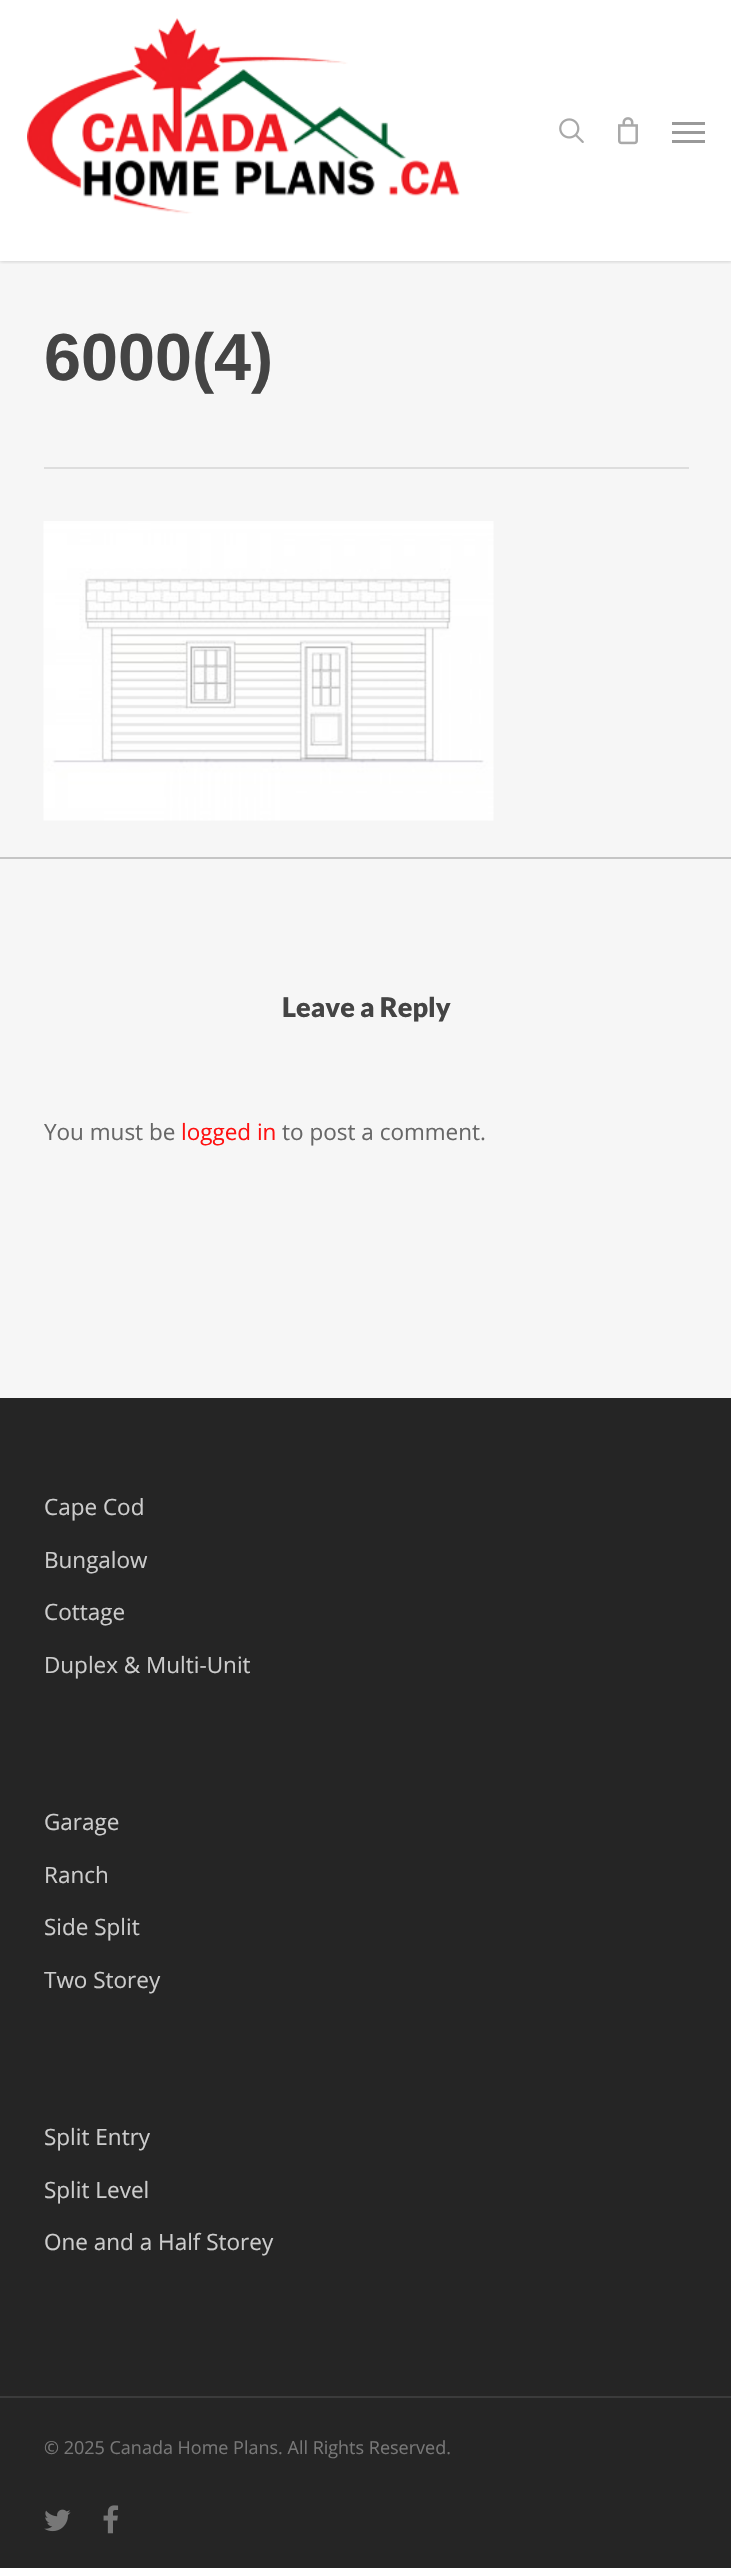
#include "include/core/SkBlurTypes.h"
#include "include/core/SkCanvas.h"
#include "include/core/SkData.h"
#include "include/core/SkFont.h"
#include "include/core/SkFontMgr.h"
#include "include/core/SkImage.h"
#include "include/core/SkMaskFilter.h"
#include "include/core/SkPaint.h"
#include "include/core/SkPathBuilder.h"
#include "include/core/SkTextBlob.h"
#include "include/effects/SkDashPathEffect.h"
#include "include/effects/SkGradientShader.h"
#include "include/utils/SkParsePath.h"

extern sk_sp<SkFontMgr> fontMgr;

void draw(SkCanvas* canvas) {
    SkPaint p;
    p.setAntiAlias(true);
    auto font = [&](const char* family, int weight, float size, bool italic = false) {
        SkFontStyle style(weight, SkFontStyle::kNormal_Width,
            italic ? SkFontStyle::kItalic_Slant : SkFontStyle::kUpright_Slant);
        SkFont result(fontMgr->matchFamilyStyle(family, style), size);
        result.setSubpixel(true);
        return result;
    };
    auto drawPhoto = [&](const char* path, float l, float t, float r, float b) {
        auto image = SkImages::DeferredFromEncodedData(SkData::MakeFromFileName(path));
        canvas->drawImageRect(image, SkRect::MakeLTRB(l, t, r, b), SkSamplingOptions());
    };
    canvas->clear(0xFFFFFFFF);
    p.setColor(0xFFF6F6F6);
    canvas->drawRect(SkRect::MakeLTRB(0, 261, 731, 1398), p);
    canvas->save();
    canvas->clipRect(SkRect::MakeLTRB(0, 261, 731, 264));
    p.setColor(0x38000000);
    p.setMaskFilter(SkMaskFilter::MakeBlur(kNormal_SkBlurStyle, 2));
    canvas->drawRect(SkRect::MakeLTRB(0, 0, 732, 261), p);
    p.setMaskFilter(nullptr);
    canvas->restore();
    drawPhoto("media/1.png", 27, 18, 460, 214);
    drawPhoto("media/2.png", 559, 118, 584, 143);
    drawPhoto("media/3.png", 618, 117, 638, 145);
    {
        const struct { float l, t, r, b; SkColor color; } items[] = {
            {672, 122, 705, 125, 0xFF999999},
            {672, 140, 705, 143, 0xFF999999},
            {672, 131, 705, 134, 0xFF999999},
            {44, 467, 689, 469, 0xFFDDDDDD},
        };
        for (auto [l, t, r, b, color] : items) {
            p.setColor(color);
            canvas->drawRect(SkRect::MakeLTRB(l, t, r, b), p);
        }
    }
    auto font1 = font("Liberation Sans", 700, 66.5f);
    p.setColor(0xFF444444);
    canvas->drawString("6000(4)", 44, 380, font1, p);
    drawPhoto("media/4.png", 43, 521, 494, 821);
    p.setColor(0xFFC5C5C5);
    canvas->drawRect(SkRect::MakeLTRB(0, 857, 731, 859), p);
    auto font2 = font("Lato", 900, 27);
    p.setColor(0xFF444444);
    canvas->drawString("Leave a Reply", 282, 1017, font2, p);
    auto font3 = font("Open Sans", 400, 22.5f);
    p.setColor(0xFF676767);
    canvas->drawString("You must be", 44, 1140, font3, p);
    p.setColor(0xFFFF1111);
    canvas->drawString("logged in", 181, 1140, font3, p);
    p.setColor(0xFF676767);
    canvas->drawString("to post a comment.", 282, 1140, font3, p);
    p.setColor(0xFF252525);
    canvas->drawRect(SkRect::MakeLTRB(0, 1398, 731, 2568), p);
    p.setColor(0xFFCCCCCC);
    {
        const struct { const char* s; float x, y; } items[] = {
            {"Cape Cod", 44, 1515},
            {"Bungalow", 44, 1568},
            {"Cottage", 44, 1620},
            {"Duplex & Multi-Unit", 44, 1673},
            {"Garage", 44, 1830},
            {"Ranch", 44, 1883},
            {"Side Split", 44, 1935},
            {"Two Storey", 44, 1988},
            {"Split Entry", 44, 2145},
            {"Split Level", 44, 2198},
            {"One and a Half Storey", 44, 2250},
        };
        for (auto [s, x, y] : items) {
            canvas->drawString(s, x, y, font3, p);
        }
    }
    p.setColor(0xFF3B3B3B);
    canvas->drawRect(SkRect::MakeLTRB(0, 2396, 731, 2398), p);
    auto font4 = font("Open Sans", 400, 18);
    p.setColor(0xFF777777);
    canvas->drawString("© 2025 Canada Home Plans. All Rights Reserved.", 44, 2454, font4, p);
    drawPhoto("media/5.png", 44, 2509, 71, 2532);
    drawPhoto("media/6.png", 103, 2505, 119, 2534);
}
